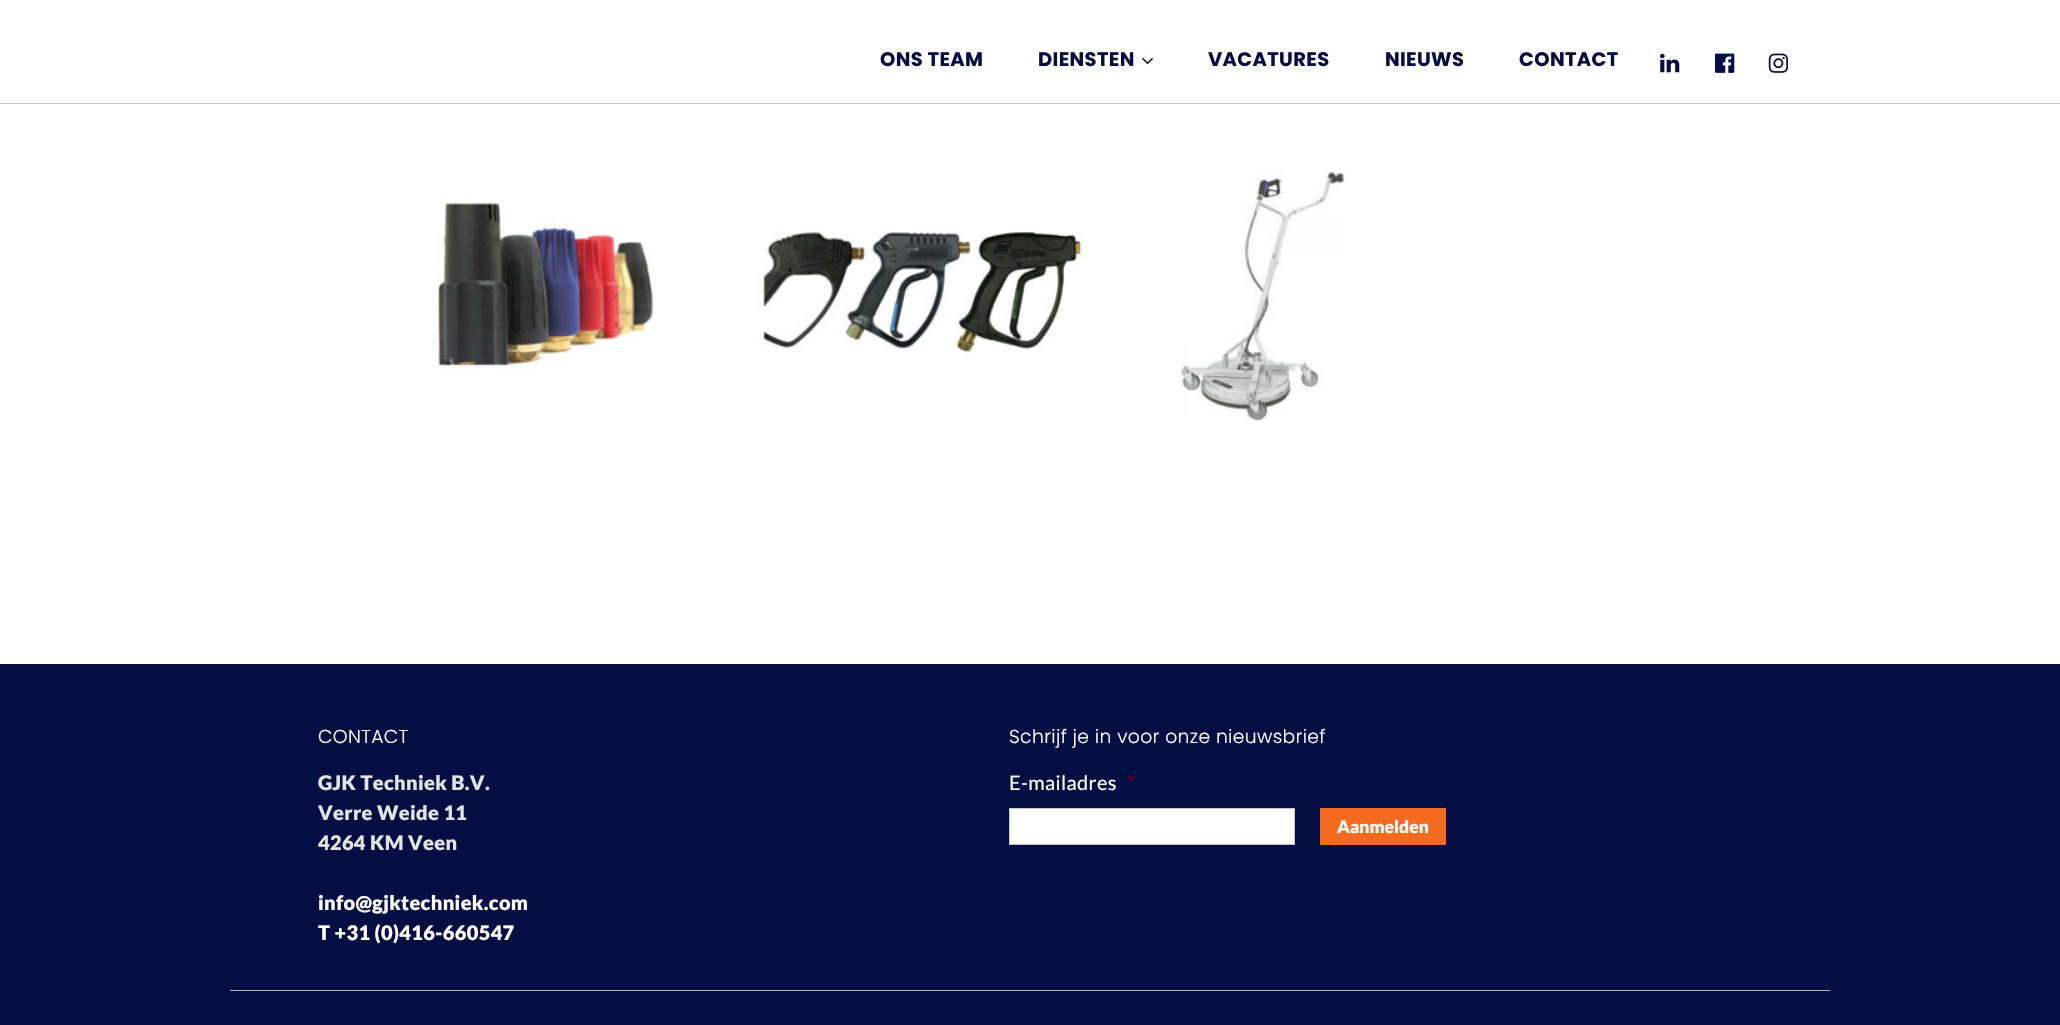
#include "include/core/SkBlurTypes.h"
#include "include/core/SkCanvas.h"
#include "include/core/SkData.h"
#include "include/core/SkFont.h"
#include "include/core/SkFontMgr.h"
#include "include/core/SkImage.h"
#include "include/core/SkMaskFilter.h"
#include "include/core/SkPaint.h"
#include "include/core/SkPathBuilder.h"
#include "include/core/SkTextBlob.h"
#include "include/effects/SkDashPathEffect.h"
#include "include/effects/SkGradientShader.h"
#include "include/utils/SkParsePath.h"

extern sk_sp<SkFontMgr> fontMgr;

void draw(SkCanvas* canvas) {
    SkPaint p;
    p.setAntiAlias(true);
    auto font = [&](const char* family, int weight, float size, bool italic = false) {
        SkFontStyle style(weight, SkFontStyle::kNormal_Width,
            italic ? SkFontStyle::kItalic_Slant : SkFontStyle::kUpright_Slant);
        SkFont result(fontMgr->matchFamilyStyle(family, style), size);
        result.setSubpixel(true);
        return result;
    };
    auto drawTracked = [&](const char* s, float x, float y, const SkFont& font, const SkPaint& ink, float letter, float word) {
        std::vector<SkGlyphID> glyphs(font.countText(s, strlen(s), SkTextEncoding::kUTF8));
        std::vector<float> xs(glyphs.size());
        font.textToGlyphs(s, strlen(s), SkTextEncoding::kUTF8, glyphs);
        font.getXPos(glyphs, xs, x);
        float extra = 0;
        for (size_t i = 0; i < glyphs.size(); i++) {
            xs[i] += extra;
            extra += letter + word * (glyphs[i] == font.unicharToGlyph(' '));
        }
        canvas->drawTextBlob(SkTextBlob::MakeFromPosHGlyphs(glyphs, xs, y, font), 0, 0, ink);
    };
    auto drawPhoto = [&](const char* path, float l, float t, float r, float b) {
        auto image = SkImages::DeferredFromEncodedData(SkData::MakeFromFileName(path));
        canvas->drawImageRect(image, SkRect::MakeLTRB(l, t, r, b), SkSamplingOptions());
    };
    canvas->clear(0xFFFFFFFF);
    p.setColor(0xFFC6C6C6);
    canvas->drawRect(SkRect::MakeLTRB(0, 103, 2060, 104), p);
    auto font1 = font("Poppins", 700, 19.5f);
    p.setColor(0xFF050E43);
    drawTracked("ONS TEAM", 880, 66, font1, p, 0.35f, 0);
    drawTracked("DIENSTEN", 1038, 66, font1, p, 0.35f, 0);
    drawPhoto("media/1.png", 1142, 57, 1153, 65);
    {
        const struct { const char* s; float x, y; } items[] = {
            {"VACATURES", 1208, 66},
            {"NIEUWS", 1385, 66},
            {"CONTACT", 1519, 66},
        };
        for (auto [s, x, y] : items) {
            drawTracked(s, x, y, font1, p, 0.35f, 0);
        }
    }
    drawPhoto("media/2.png", 1660, 53, 1680, 73);
    drawPhoto("media/3.png", 1715, 53, 1735, 73);
    drawPhoto("media/4.png", 1768, 53, 1789, 73);
    drawPhoto("media/5.png", 435, 201, 655, 371);
    drawPhoto("media/6.png", 755, 231, 1085, 356);
    drawPhoto("media/7.png", 1180, 171, 1346, 421);
    canvas->drawRect(SkRect::MakeLTRB(0, 664, 2060, 1025), p);
    auto font2 = font("Poppins", 300, 18.75f);
    p.setColor(0xFFFFFFFF);
    drawTracked("CONTACT", 318, 743, font2, p, 0.35f, 0);
    auto font3 = font("Lato", 900, 20);
    p.setColor(0xFFE3E3E3);
    {
        const struct { const char* s; float x, y; } items[] = {
            {"GJK Techniek B.V.", 318, 790},
            {"Verre Weide 11", 318, 820},
            {"4264 KM Veen", 318, 850},
        };
        for (auto [s, x, y] : items) {
            drawTracked(s, x, y, font3, p, 0.35f, 0);
        }
    }
    p.setColor(0xFFFFFFFF);
    drawTracked("info@gjktechniek.com", 318, 910, font3, p, 0.35f, 0);
    drawTracked("T +31 (0)416-660547", 318, 940, font3, p, 0.35f, 0);
    drawTracked("Schrijf je in voor onze nieuwsbrief", 1009, 743, font2, p, 0.35f, 0);
    auto font4 = font("Lato", 400, 20);
    drawTracked("E-mailadres", 1009, 790, font4, p, 0.35f, 0);
    p.setColor(0xFF790000);
    drawTracked("*", 1127, 790, font4, p, 0.35f, 0);
    p.setColor(0xFFFFFFFF);
    canvas->drawRect(SkRect::MakeLTRB(1009.5f, 808.5f, 1294.5f, 844.5f), p);
    p.setStyle(SkPaint::kStroke_Style);
    p.setStrokeWidth(1);
    p.setColor(0xFFC6C6C6);
    canvas->drawRect(SkRect::MakeLTRB(1009.5f, 808.5f, 1294.5f, 844.5f), p);
    p.setStyle(SkPaint::kFill_Style);
    p.setColor(0xFFF36B21);
    canvas->drawRect(SkRect::MakeLTRB(1320, 808, 1446, 845), p);
    auto font5 = font("Lato", 900, 17.5f);
    p.setColor(0xFFFFFFFF);
    canvas->drawString("Aanmelden", 1337, 833, font5, p);
    p.setColor(0xFFB2B2B2);
    canvas->drawRect(SkRect::MakeLTRB(230, 990, 1830, 991), p);
}
